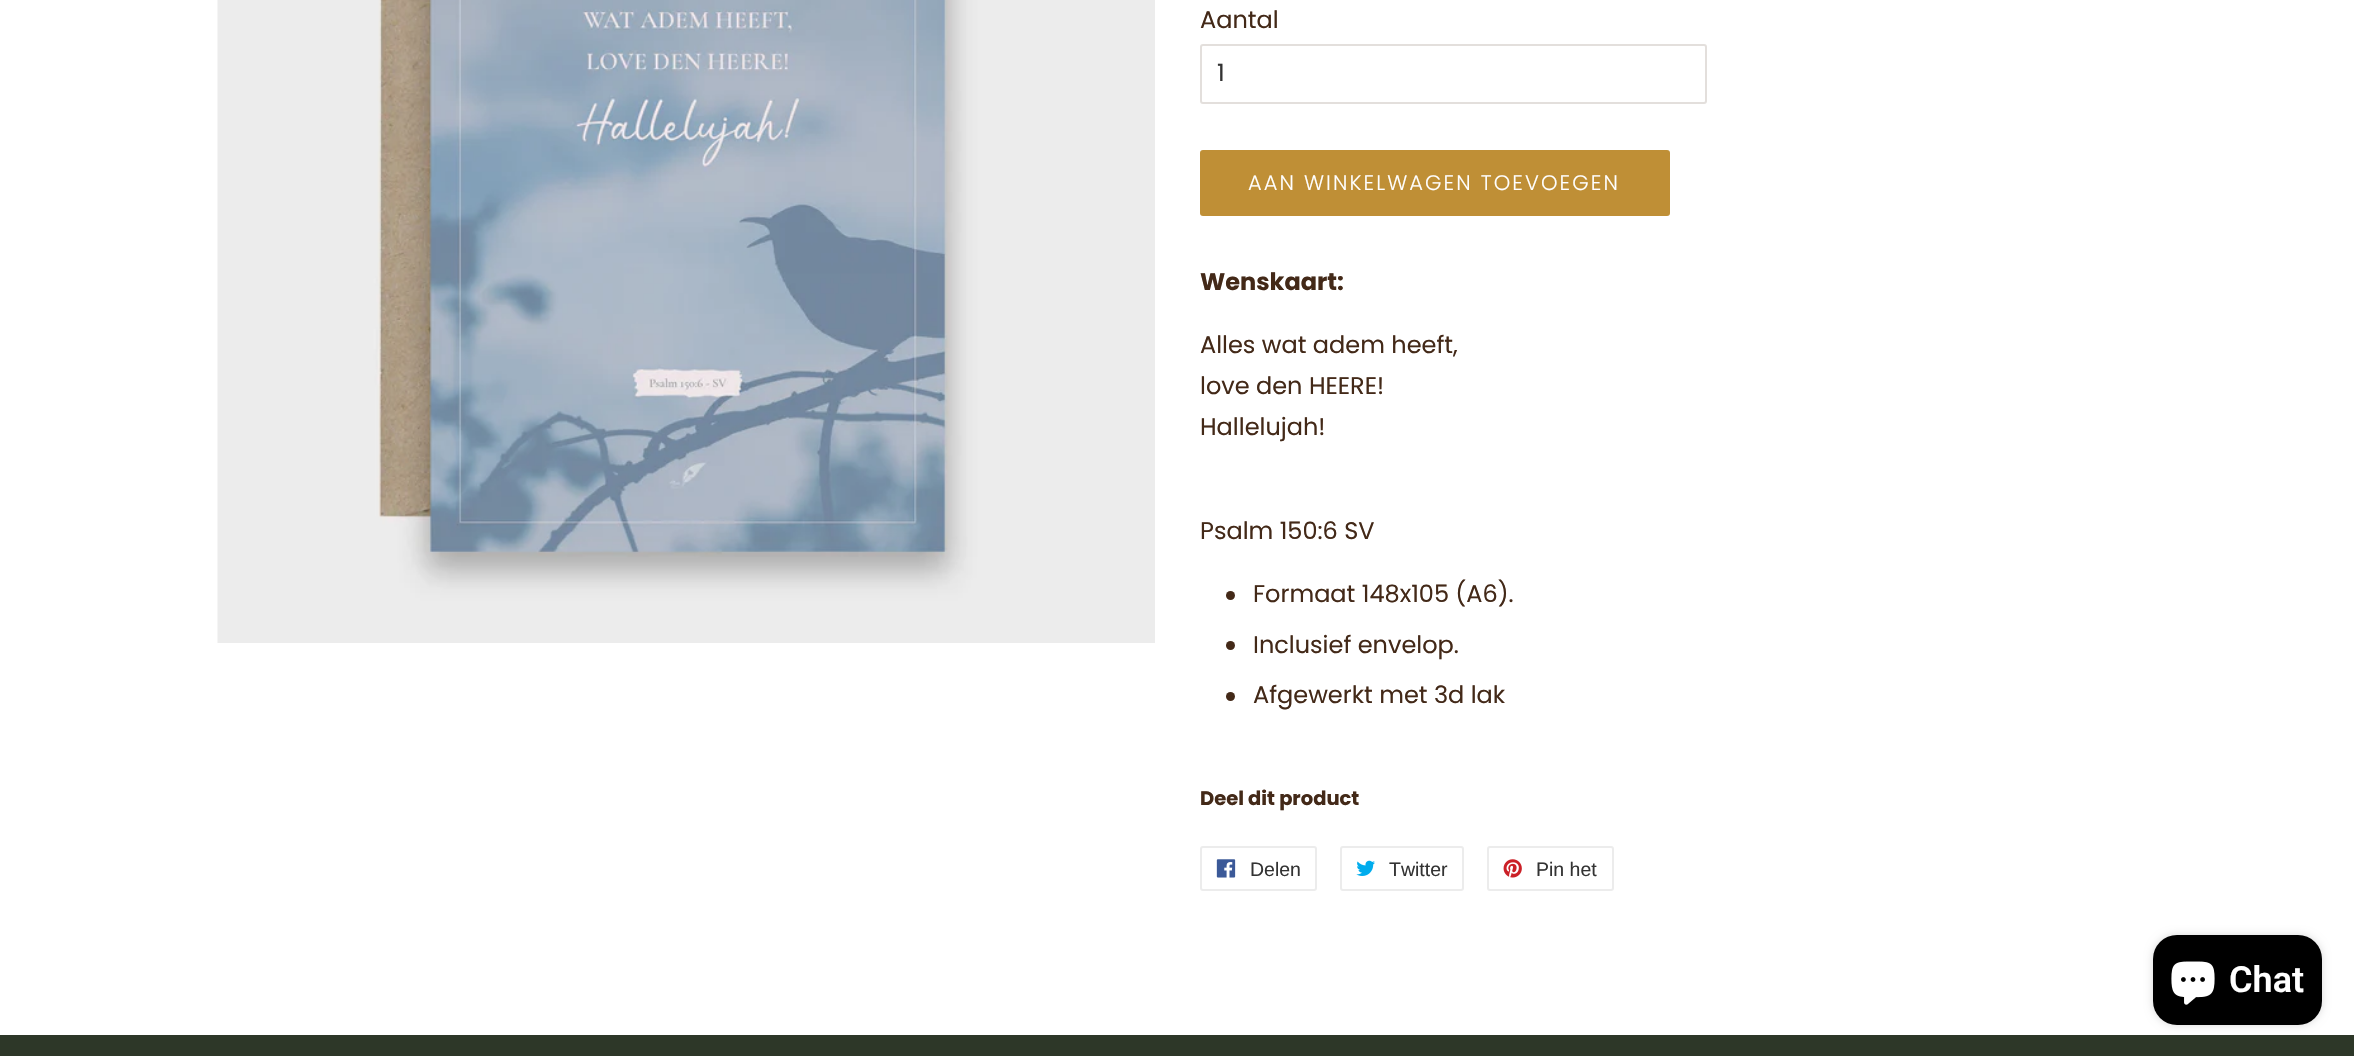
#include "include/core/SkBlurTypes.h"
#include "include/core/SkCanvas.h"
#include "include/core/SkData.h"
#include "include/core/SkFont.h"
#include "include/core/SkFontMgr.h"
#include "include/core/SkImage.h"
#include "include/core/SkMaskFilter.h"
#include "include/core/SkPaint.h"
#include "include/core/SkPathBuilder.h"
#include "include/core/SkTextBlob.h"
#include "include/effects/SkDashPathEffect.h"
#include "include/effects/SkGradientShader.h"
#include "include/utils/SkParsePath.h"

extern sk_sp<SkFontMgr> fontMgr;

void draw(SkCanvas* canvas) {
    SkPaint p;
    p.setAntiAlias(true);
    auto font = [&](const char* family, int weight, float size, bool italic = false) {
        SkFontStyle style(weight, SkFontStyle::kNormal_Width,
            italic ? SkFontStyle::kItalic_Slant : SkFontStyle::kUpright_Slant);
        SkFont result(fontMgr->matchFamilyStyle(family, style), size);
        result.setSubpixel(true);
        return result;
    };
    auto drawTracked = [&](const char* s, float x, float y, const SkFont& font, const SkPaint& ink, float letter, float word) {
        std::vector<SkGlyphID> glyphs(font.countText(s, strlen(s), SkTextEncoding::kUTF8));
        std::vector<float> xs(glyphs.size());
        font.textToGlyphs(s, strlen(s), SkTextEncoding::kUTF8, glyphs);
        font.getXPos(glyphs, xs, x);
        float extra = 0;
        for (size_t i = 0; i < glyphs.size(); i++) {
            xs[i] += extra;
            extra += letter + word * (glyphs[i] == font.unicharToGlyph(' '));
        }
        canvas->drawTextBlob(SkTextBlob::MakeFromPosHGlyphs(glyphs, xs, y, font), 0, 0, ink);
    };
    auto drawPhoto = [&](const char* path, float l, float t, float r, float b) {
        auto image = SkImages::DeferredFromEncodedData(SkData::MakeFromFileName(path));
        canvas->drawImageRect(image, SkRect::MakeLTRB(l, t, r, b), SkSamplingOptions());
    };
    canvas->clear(0xFFFFFFFF);
    drawPhoto("media/1.png", 217, 0, 1155, 643);
    auto font1 = font("Poppins", 400, 24);
    p.setColor(0xFF432918);
    canvas->drawString("Aantal", 1200, 28, font1, p);
    p.setStyle(SkPaint::kStroke_Style);
    p.setStrokeWidth(2);
    p.setColor(0xFFE3DFDC);
    canvas->drawRoundRect(SkRect::MakeLTRB(1201, 45, 1706, 103), 2, 2, p);
    p.setStyle(SkPaint::kFill_Style);
    p.setColor(0xFF333333);
    canvas->drawString("1", 1217, 81, font1, p);
    p.setColor(0xFFBF8F36);
    canvas->drawRoundRect(SkRect::MakeLTRB(1200, 150, 1670, 216), 3, 3, p);
    auto font2 = font("Poppins", 300, 21);
    p.setColor(0xFFFFFFFF);
    drawTracked("AAN WINKELWAGEN TOEVOEGEN", 1248, 190, font2, p, 2.1f, 0);
    auto font3 = font("Poppins", 700, 24);
    p.setColor(0xFF432918);
    canvas->drawString("Wenskaart:", 1200, 290, font3, p);
    {
        const struct { const char* s; float x, y; } items[] = {
            {"Alles wat adem heeft,", 1200, 353},
            {"love den HEERE!", 1200, 394},
            {"Hallelujah!", 1200, 435},
            {"Psalm 150:6 SV", 1200, 539},
        };
        for (auto [s, x, y] : items) {
            canvas->drawString(s, x, y, font1, p);
        }
    }
    canvas->drawCircle(1230.5f, 595.5f, 4.5f, p);
    canvas->drawString("Formaat 148x105 (A6).", 1253, 602, font1, p);
    canvas->drawCircle(1230.5f, 645.5f, 4.5f, p);
    canvas->drawString("Inclusief envelop.", 1253, 653, font1, p);
    canvas->drawCircle(1230.5f, 696.5f, 4.5f, p);
    canvas->drawString("Afgewerkt met 3d lak", 1253, 703, font1, p);
    auto font4 = font("Poppins", 700, 19.5f);
    canvas->drawString("Deel dit product", 1200, 805, font4, p);
    p.setStyle(SkPaint::kStroke_Style);
    p.setColor(0xFFECECEC);
    canvas->drawRoundRect(SkRect::MakeLTRB(1201, 847, 1316, 890), 2, 2, p);
    drawPhoto("media/2.png", 1216, 859, 1236, 878);
    auto font5 = font("Liberation Sans", 400, 19.5f);
    p.setStyle(SkPaint::kFill_Style);
    p.setColor(0xFF333333);
    canvas->drawString("Delen", 1250, 876, font5, p);
    p.setStyle(SkPaint::kStroke_Style);
    p.setColor(0xFFECECEC);
    canvas->drawRoundRect(SkRect::MakeLTRB(1341, 847, 1463, 890), 2, 2, p);
    drawPhoto("media/3.png", 1356, 860, 1375, 876);
    p.setStyle(SkPaint::kFill_Style);
    p.setColor(0xFF333333);
    canvas->drawString("Twitter", 1389, 876, font5, p);
    p.setStyle(SkPaint::kStroke_Style);
    p.setColor(0xFFECECEC);
    canvas->drawRoundRect(SkRect::MakeLTRB(1488, 847, 1613, 890), 2, 2, p);
    drawPhoto("media/4.png", 1503, 859, 1522, 878);
    p.setStyle(SkPaint::kFill_Style);
    p.setColor(0xFF333333);
    canvas->drawString("Pin het", 1536, 876, font5, p);
    p.setColor(0xFF2D3728);
    canvas->drawRect(SkRect::MakeLTRB(0, 1035, 2354, 1056), p);
    p.setColor(0x26000000);
    p.setMaskFilter(SkMaskFilter::MakeBlur(kNormal_SkBlurStyle, 4));
    canvas->drawRoundRect(SkRect::MakeLTRB(2153, 935, 2322, 1025), 24, 24, p);
    p.setMaskFilter(nullptr);
    p.setColor(0xFF000000);
    canvas->drawRoundRect(SkRect::MakeLTRB(2153, 935, 2322, 1025), 24, 24, p);
    drawPhoto("media/5.png", 2171, 961, 2215, 1005);
    auto font6 = font("Roboto", 600, 36);
    p.setColor(0xFFFFFFFF);
    canvas->drawString("Chat", 2229, 992, font6, p);
}
